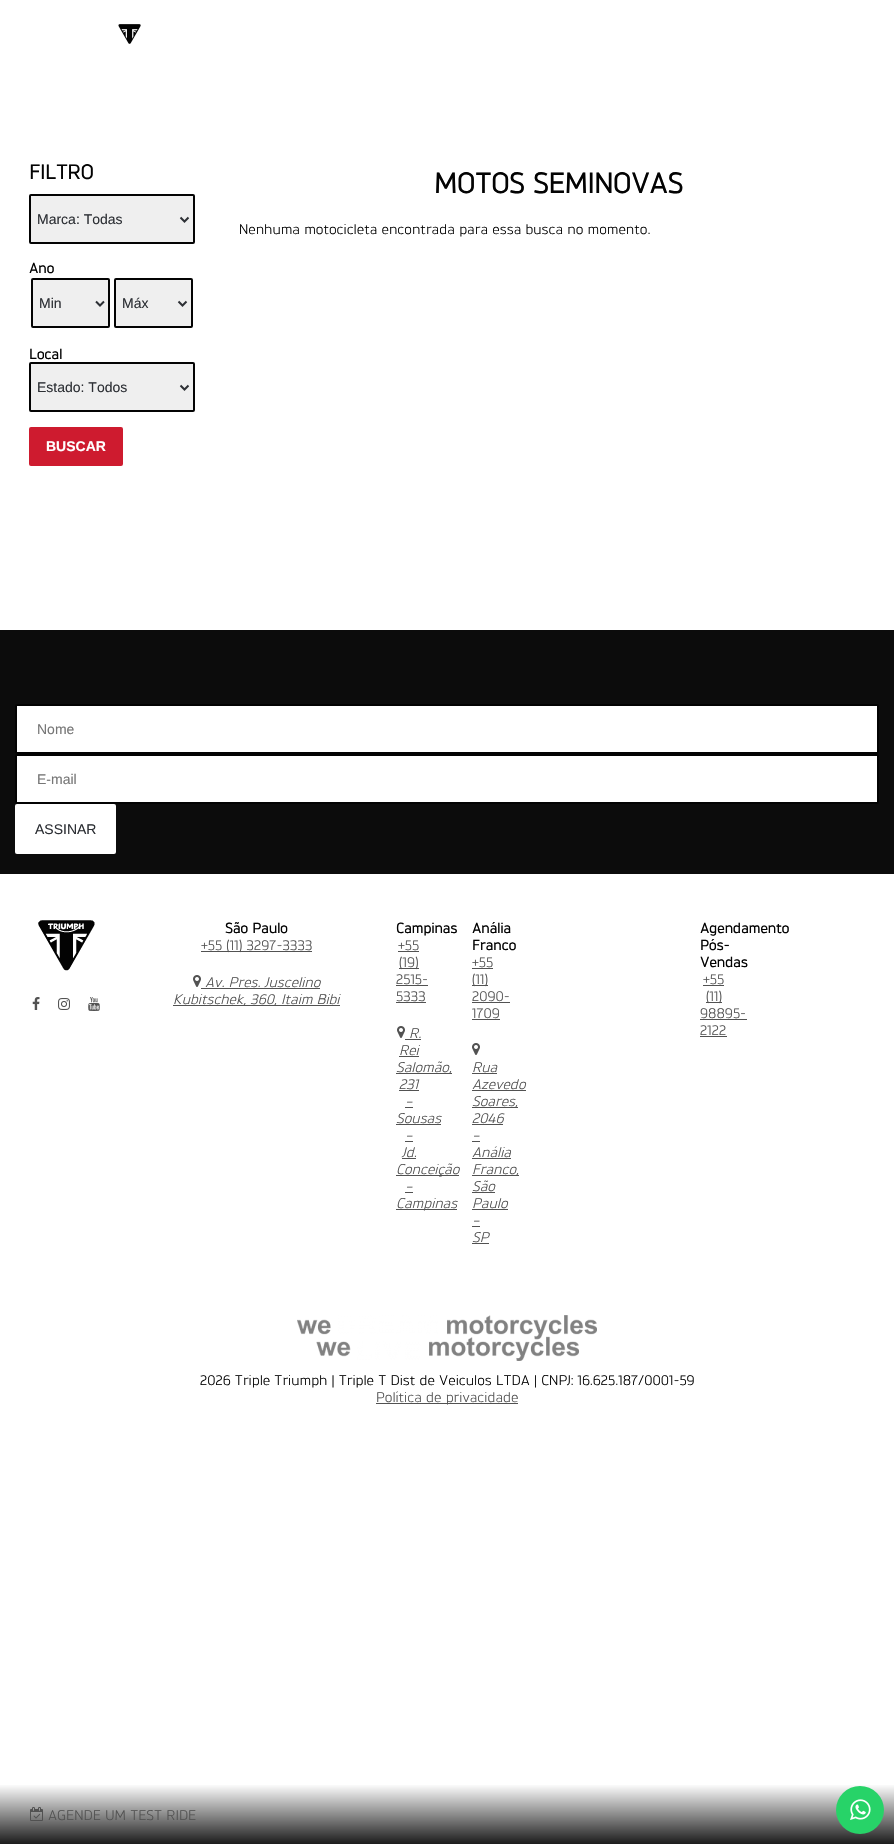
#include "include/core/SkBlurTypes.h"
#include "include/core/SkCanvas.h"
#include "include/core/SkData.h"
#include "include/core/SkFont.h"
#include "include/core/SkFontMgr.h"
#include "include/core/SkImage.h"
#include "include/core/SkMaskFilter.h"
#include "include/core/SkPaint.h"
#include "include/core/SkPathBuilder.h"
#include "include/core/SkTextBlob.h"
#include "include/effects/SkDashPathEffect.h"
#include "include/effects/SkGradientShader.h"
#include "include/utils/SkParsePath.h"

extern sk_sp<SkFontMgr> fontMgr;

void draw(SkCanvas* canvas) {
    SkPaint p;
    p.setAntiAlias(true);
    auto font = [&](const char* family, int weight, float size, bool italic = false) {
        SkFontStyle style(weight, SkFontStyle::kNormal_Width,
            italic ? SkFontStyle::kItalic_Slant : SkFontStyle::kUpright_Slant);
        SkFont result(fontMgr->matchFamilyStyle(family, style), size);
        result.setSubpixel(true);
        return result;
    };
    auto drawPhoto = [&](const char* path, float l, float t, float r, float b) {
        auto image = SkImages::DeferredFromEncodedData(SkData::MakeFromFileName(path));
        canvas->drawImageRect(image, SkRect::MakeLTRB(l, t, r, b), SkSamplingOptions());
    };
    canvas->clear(0xFFFFFFFF);
    drawPhoto("media/1.png", 118, 24, 141, 44);
    auto font1 = font("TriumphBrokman", 700, 20);
    p.setColor(0xFF030303);
    canvas->drawString("FILTRO", 29, 179, font1, p);
    p.setColor(0xFFEFEFEF);
    canvas->drawRoundRect(SkRect::MakeLTRB(30, 195, 194, 243), 1, 1, p);
    p.setStyle(SkPaint::kStroke_Style);
    p.setStrokeWidth(2);
    p.setColor(0xFF030303);
    canvas->drawRoundRect(SkRect::MakeLTRB(30, 195, 194, 243), 1, 1, p);
    p.setColor(0xFF2D3035);
    canvas->drawPath(SkPathBuilder().moveTo(180.5f, 217.5f).lineTo(184.5f, 221.5f).lineTo(188.5f, 217.5f).detach(), p);
    auto font2 = font("Liberation Sans", 400, 14);
    p.setStyle(SkPaint::kFill_Style);
    canvas->drawString("Marca: Todas", 37, 224, font2, p);
    auto font3 = font("TriumphBrokman", 700, 14);
    p.setColor(0xFF030303);
    canvas->drawString("Ano", 29, 273, font3, p);
    p.setColor(0xFFEFEFEF);
    canvas->drawRoundRect(SkRect::MakeLTRB(32, 279, 109, 327), 1, 1, p);
    p.setStyle(SkPaint::kStroke_Style);
    p.setColor(0xFF030303);
    canvas->drawRoundRect(SkRect::MakeLTRB(32, 279, 109, 327), 1, 1, p);
    p.setColor(0xFF2D3035);
    canvas->drawPath(SkPathBuilder().moveTo(96, 301.5f).lineTo(100, 305.5f).lineTo(104, 301.5f).detach(), p);
    p.setStyle(SkPaint::kFill_Style);
    canvas->drawString("Min", 39, 308, font2, p);
    p.setColor(0xFFEFEFEF);
    canvas->drawRoundRect(SkRect::MakeLTRB(115, 279, 192, 327), 1, 1, p);
    p.setStyle(SkPaint::kStroke_Style);
    p.setColor(0xFF030303);
    canvas->drawRoundRect(SkRect::MakeLTRB(115, 279, 192, 327), 1, 1, p);
    p.setColor(0xFF2D3035);
    canvas->drawPath(SkPathBuilder().moveTo(178.5f, 301.5f).lineTo(182.5f, 305.5f).lineTo(186.5f, 301.5f).detach(), p);
    p.setStyle(SkPaint::kFill_Style);
    canvas->drawString("Máx", 122, 308, font2, p);
    p.setColor(0xFF030303);
    canvas->drawString("Local", 29, 359, font3, p);
    p.setColor(0xFFEFEFEF);
    canvas->drawRoundRect(SkRect::MakeLTRB(30, 363, 194, 411), 1, 1, p);
    p.setStyle(SkPaint::kStroke_Style);
    p.setColor(0xFF030303);
    canvas->drawRoundRect(SkRect::MakeLTRB(30, 363, 194, 411), 1, 1, p);
    p.setColor(0xFF2D3035);
    canvas->drawPath(SkPathBuilder().moveTo(180.5f, 385.5f).lineTo(184.5f, 389.5f).lineTo(188.5f, 385.5f).detach(), p);
    p.setStyle(SkPaint::kFill_Style);
    canvas->drawString("Estado: Todos", 37, 392, font2, p);
    p.setColor(0xFFCE1B2F);
    canvas->drawRoundRect(SkRect::MakeLTRB(30, 428, 122, 465), 1, 1, p);
    p.setStyle(SkPaint::kStroke_Style);
    canvas->drawRoundRect(SkRect::MakeLTRB(30, 428, 122, 465), 1, 1, p);
    auto font4 = font("Liberation Sans", 700, 14);
    p.setStyle(SkPaint::kFill_Style);
    p.setColor(0xFFFFFFFF);
    canvas->drawString("BUSCAR", 46, 451, font4, p);
    auto font5 = font("TriumphBrokman", 700, 28);
    p.setColor(0xFF030303);
    canvas->drawString("MOTOS SEMINOVAS", 434, 193, font5, p);
    auto font6 = font("TriumphBrokman", 400, 14);
    canvas->drawString("Nenhuma motocicleta encontrada para essa busca no momento.", 239, 234, font6, p);
    p.setColor(0xFF0C0C0C);
    canvas->drawRect(SkRect::MakeLTRB(0, 630, 894, 874), p);
    p.setColor(0xFFFFFFFF);
    canvas->drawRoundRect(SkRect::MakeLTRB(16, 705, 878, 753), 1, 1, p);
    p.setStyle(SkPaint::kStroke_Style);
    p.setColor(0xFF030303);
    canvas->drawRoundRect(SkRect::MakeLTRB(16, 705, 878, 753), 1, 1, p);
    p.setStyle(SkPaint::kFill_Style);
    p.setColor(0xFF767676);
    canvas->drawString("Nome", 37, 734, font2, p);
    p.setColor(0xFFFFFFFF);
    canvas->drawRoundRect(SkRect::MakeLTRB(16, 755, 878, 803), 1, 1, p);
    p.setStyle(SkPaint::kStroke_Style);
    p.setColor(0xFF030303);
    canvas->drawRoundRect(SkRect::MakeLTRB(16, 755, 878, 803), 1, 1, p);
    p.setStyle(SkPaint::kFill_Style);
    p.setColor(0xFF767676);
    canvas->drawString("E-mail", 37, 784, font2, p);
    p.setColor(0xFFFFFFFF);
    canvas->drawRoundRect(SkRect::MakeLTRB(15, 804, 116, 854), 2, 2, p);
    p.setColor(0xFF2D3035);
    canvas->drawString("ASSINAR", 35, 834, font2, p);
    drawPhoto("media/2.png", 38, 920, 95, 971);
    drawPhoto("media/3.png", 32, 997, 40, 1010);
    drawPhoto("media/4.png", 58, 998, 70, 1010);
    drawPhoto("media/5.png", 88, 997, 100, 1011);
    p.setColor(0xFF030303);
    canvas->drawString("São Paulo", 225, 933, font3, p);
    p.setColor(0xFF525252);
    canvas->drawRect(SkRect::MakeLTRB(201, 951, 312, 952), p);
    canvas->drawString("+55 (11) 3297-3333", 201, 950, font6, p);
    drawPhoto("media/6.png", 193, 975, 201, 987);
    auto font7 = font("TriumphBrokman", 400, 14, true);
    canvas->drawString("Av. Pres. Juscelino", 205, 987, font7, p);
    canvas->drawRect(SkRect::MakeLTRB(201, 988, 320, 989), p);
    canvas->drawRect(SkRect::MakeLTRB(173, 1005, 340, 1006), p);
    canvas->drawString("Kubitschek, 360, Itaim Bibi", 173, 1004, font7, p);
    p.setColor(0xFF030303);
    canvas->drawString("Campinas", 396, 933, font3, p);
    p.setColor(0xFF525252);
    canvas->drawString("+55", 398, 950, font6, p);
    canvas->drawRect(SkRect::MakeLTRB(398, 951, 419, 952), p);
    canvas->drawRect(SkRect::MakeLTRB(399, 968, 419, 969), p);
    canvas->drawString("(19)", 399, 967, font6, p);
    canvas->drawString("2515-", 396, 984, font6, p);
    canvas->drawRect(SkRect::MakeLTRB(396, 985, 428, 986), p);
    canvas->drawString("5333", 396, 1001, font6, p);
    canvas->drawRect(SkRect::MakeLTRB(396, 1002, 426, 1003), p);
    drawPhoto("media/6.png", 397, 1026, 405, 1038);
    canvas->drawString("R.", 409, 1038, font7, p);
    canvas->drawRect(SkRect::MakeLTRB(405, 1039, 421, 1040), p);
    canvas->drawString("Rei", 399, 1055, font7, p);
    canvas->drawRect(SkRect::MakeLTRB(399, 1056, 419, 1057), p);
    canvas->drawRect(SkRect::MakeLTRB(396, 1073, 452, 1074), p);
    canvas->drawString("Salomão,", 396, 1072, font7, p);
    canvas->drawString("231", 399, 1089, font7, p);
    canvas->drawRect(SkRect::MakeLTRB(399, 1090, 419, 1091), p);
    canvas->drawString("–", 405, 1106, font7, p);
    canvas->drawRect(SkRect::MakeLTRB(405, 1107, 413, 1108), p);
    canvas->drawString("Sousas", 396, 1123, font7, p);
    canvas->drawRect(SkRect::MakeLTRB(396, 1124, 441, 1125), p);
    canvas->drawString("–", 405, 1140, font7, p);
    canvas->drawRect(SkRect::MakeLTRB(405, 1141, 413, 1142), p);
    canvas->drawString("Jd.", 402, 1157, font7, p);
    canvas->drawRect(SkRect::MakeLTRB(402, 1158, 416, 1159), p);
    canvas->drawRect(SkRect::MakeLTRB(396, 1175, 459, 1176), p);
    canvas->drawString("Conceição", 396, 1174, font7, p);
    canvas->drawString("–", 405, 1191, font7, p);
    canvas->drawRect(SkRect::MakeLTRB(405, 1192, 413, 1193), p);
    canvas->drawRect(SkRect::MakeLTRB(396, 1209, 457, 1210), p);
    canvas->drawString("Campinas", 396, 1208, font7, p);
    p.setColor(0xFF030303);
    canvas->drawString("Anália", 472, 933, font3, p);
    canvas->drawString("Franco", 472, 950, font3, p);
    p.setColor(0xFF525252);
    canvas->drawString("+55", 472, 967, font6, p);
    canvas->drawRect(SkRect::MakeLTRB(472, 968, 493, 969), p);
    canvas->drawRect(SkRect::MakeLTRB(472, 985, 488, 986), p);
    canvas->drawString("(11)", 472, 984, font6, p);
    canvas->drawString("2090-", 472, 1001, font6, p);
    canvas->drawRect(SkRect::MakeLTRB(472, 1002, 510, 1003), p);
    canvas->drawString("1709", 472, 1018, font6, p);
    canvas->drawRect(SkRect::MakeLTRB(472, 1019, 500, 1020), p);
    drawPhoto("media/6.png", 472, 1043, 480, 1055);
    canvas->drawString("Rua", 472, 1072, font7, p);
    canvas->drawRect(SkRect::MakeLTRB(472, 1073, 497, 1074), p);
    canvas->drawString("Azevedo", 472, 1089, font7, p);
    canvas->drawRect(SkRect::MakeLTRB(472, 1090, 526, 1091), p);
    canvas->drawRect(SkRect::MakeLTRB(472, 1107, 518, 1108), p);
    canvas->drawString("Soares,", 472, 1106, font7, p);
    canvas->drawString("2046", 472, 1123, font7, p);
    canvas->drawRect(SkRect::MakeLTRB(472, 1124, 503, 1125), p);
    canvas->drawString("–", 472, 1140, font7, p);
    canvas->drawRect(SkRect::MakeLTRB(472, 1141, 480, 1142), p);
    canvas->drawString("Anália", 472, 1157, font7, p);
    canvas->drawRect(SkRect::MakeLTRB(472, 1158, 511, 1159), p);
    canvas->drawRect(SkRect::MakeLTRB(472, 1175, 519, 1176), p);
    canvas->drawString("Franco,", 472, 1174, font7, p);
    canvas->drawString("São", 472, 1191, font7, p);
    canvas->drawRect(SkRect::MakeLTRB(472, 1192, 495, 1193), p);
    canvas->drawString("Paulo", 472, 1208, font7, p);
    canvas->drawRect(SkRect::MakeLTRB(472, 1209, 508, 1210), p);
    canvas->drawString("–", 472, 1225, font7, p);
    canvas->drawRect(SkRect::MakeLTRB(472, 1226, 480, 1227), p);
    canvas->drawString("SP", 472, 1242, font7, p);
    canvas->drawRect(SkRect::MakeLTRB(472, 1243, 489, 1244), p);
    p.setColor(0xFF030303);
    {
        const struct { const char* s; float x, y; } items[] = {
            {"Agendamento", 700, 933},
            {"Pós-", 700, 950},
            {"Vendas", 700, 967},
        };
        for (auto [s, x, y] : items) {
            canvas->drawString(s, x, y, font3, p);
        }
    }
    p.setColor(0xFF525252);
    canvas->drawString("+55", 703, 984, font6, p);
    canvas->drawRect(SkRect::MakeLTRB(703, 985, 724, 986), p);
    canvas->drawRect(SkRect::MakeLTRB(706, 1002, 722, 1003), p);
    canvas->drawString("(11)", 706, 1001, font6, p);
    canvas->drawString("98895-", 700, 1018, font6, p);
    canvas->drawRect(SkRect::MakeLTRB(700, 1019, 747, 1020), p);
    canvas->drawString("2122", 700, 1035, font6, p);
    canvas->drawRect(SkRect::MakeLTRB(700, 1036, 727, 1037), p);
    drawPhoto("media/7.png", 297, 1315, 597, 1361);
    p.setColor(0xFF030303);
    canvas->drawString("2026 Triple Triumph | Triple T Dist de Veiculos LTDA | CNPJ: 16.625.187/0001-59", 200, 1385, font6, p);
    p.setColor(0xFF525252);
    canvas->drawRect(SkRect::MakeLTRB(376, 1403, 518, 1404), p);
    canvas->drawString("Política de privacidade", 376, 1402, font6, p);
    {
        const SkColor colors[] = {0xFFFFFFFF, 0xFF1C1C1C};
        const float stops[] = {0, 1};
        const SkPoint ends[] = {{447, 1784}, {447, 1844}};
        p.setShader(SkGradientShader::MakeLinear(ends, colors, stops, 2, SkTileMode::kClamp));
        p.setAlpha(255);
    }
    canvas->drawRect(SkRect::MakeLTRB(0, 1785, 894, 1844), p);
    drawPhoto("media/8.png", 30, 1807, 43, 1821);
    p.setShader(nullptr);
    p.setColor(0xFF525252);
    canvas->drawString("AGENDE UM TEST RIDE", 48, 1820, font6, p);
    p.setColor(0xFF27D368);
    canvas->drawCircle(860, 1810, 24, p);
    drawPhoto("media/9.png", 850, 1799, 871, 1820);
}
